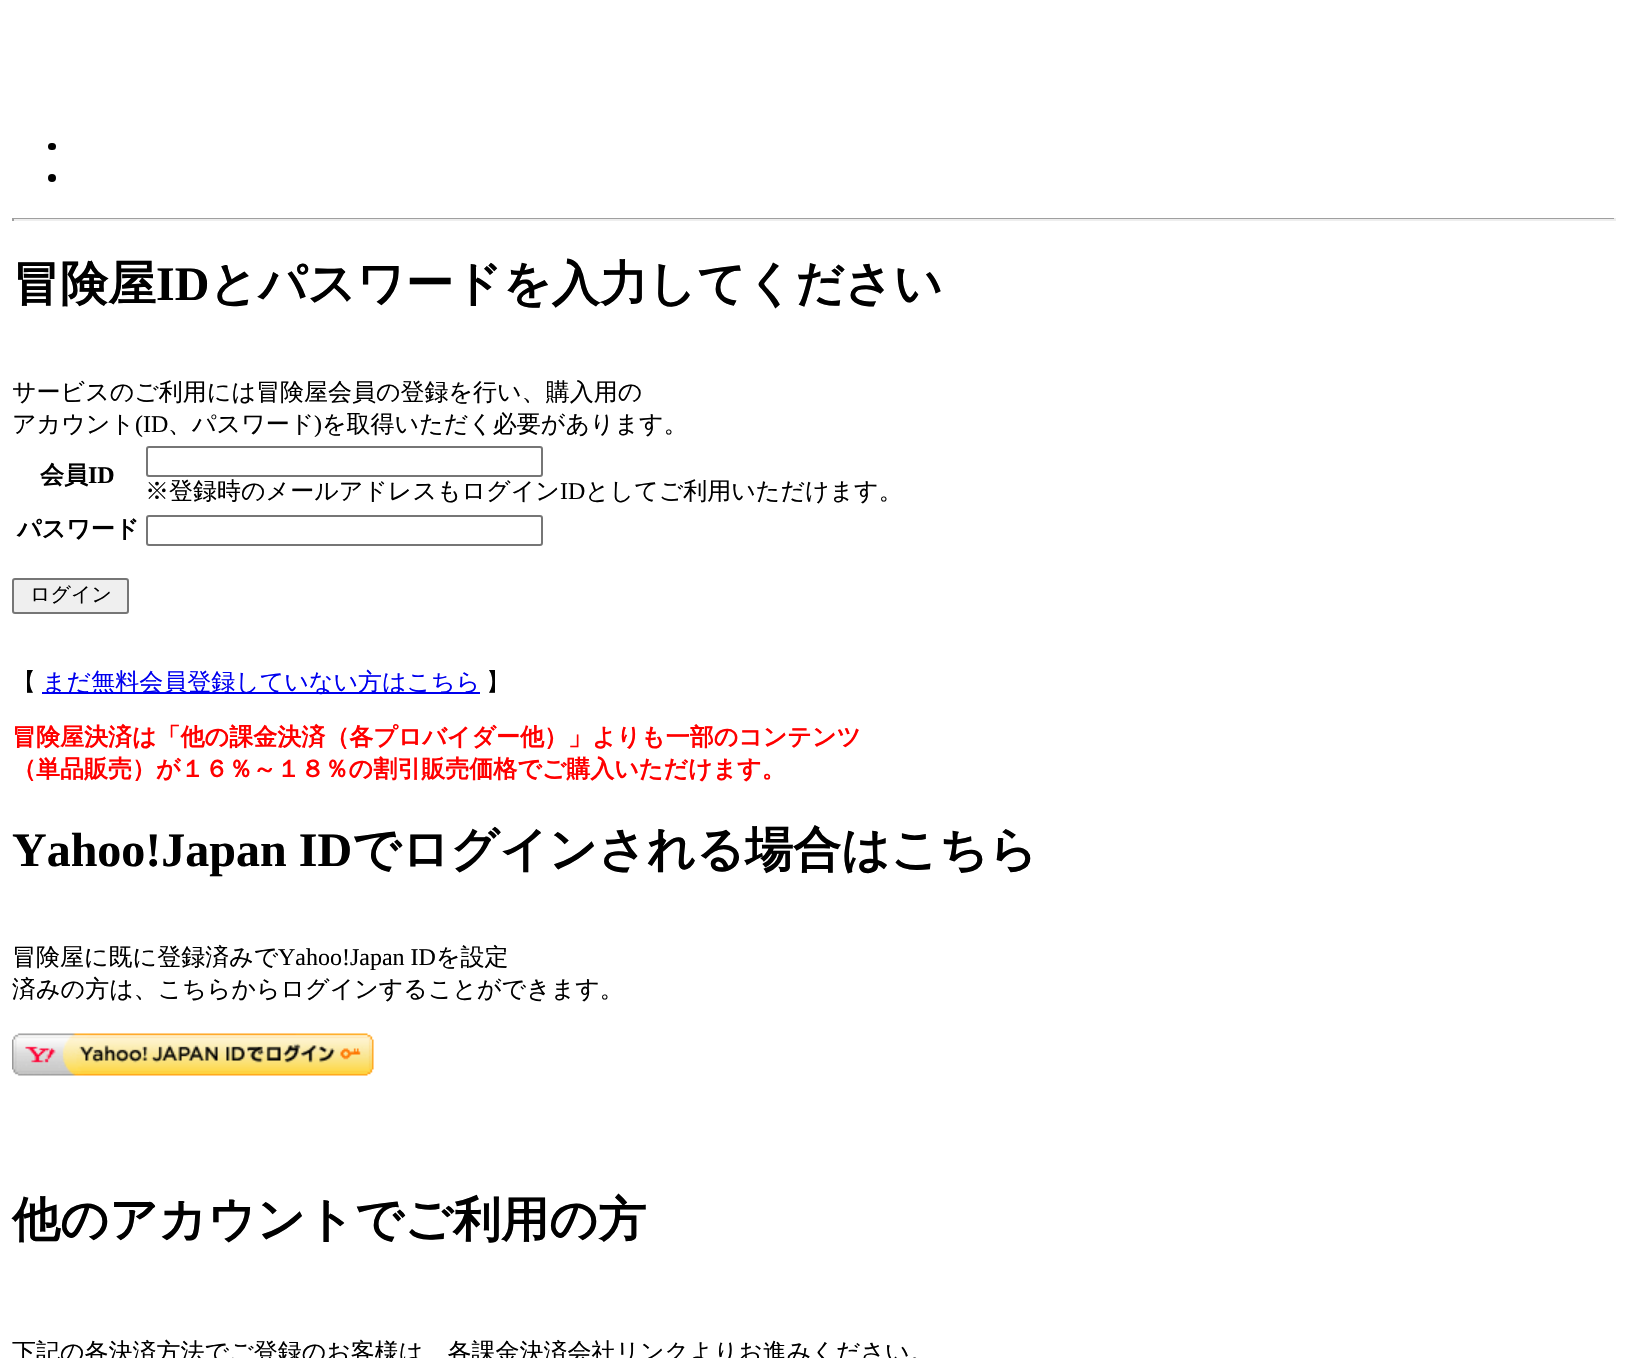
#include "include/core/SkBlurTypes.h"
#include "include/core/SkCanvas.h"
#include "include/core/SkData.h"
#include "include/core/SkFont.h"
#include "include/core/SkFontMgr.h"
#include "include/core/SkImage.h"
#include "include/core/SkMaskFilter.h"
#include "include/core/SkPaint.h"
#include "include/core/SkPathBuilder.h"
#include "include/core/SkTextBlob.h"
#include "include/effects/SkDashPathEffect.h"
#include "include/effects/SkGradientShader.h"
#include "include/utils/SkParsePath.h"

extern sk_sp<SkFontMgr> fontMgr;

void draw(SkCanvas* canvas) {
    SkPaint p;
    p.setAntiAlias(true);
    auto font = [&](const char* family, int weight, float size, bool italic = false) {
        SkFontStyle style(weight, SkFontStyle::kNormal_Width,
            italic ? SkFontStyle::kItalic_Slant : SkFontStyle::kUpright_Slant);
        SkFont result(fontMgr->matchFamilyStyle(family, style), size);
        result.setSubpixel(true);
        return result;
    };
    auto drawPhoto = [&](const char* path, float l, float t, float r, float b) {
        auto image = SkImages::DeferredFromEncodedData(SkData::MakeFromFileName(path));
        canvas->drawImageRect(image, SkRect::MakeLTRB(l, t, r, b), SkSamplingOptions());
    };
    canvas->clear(0xFFFFFFFF);
    p.setColor(0xFF000000);
    canvas->drawRoundRect(SkRect::MakeLTRB(48, 143, 56, 150), 3.5f, 3.5f, p);
    canvas->drawCircle(52, 178, 4, p);
    {
        const struct { float l, t, r, b; SkColor color; } items[] = {
            {12, 218, 1616, 219, 0xFF9F9F9F},
            {1614, 218, 1616, 221, 0xFFEEEEEE},
            {12, 219, 1616, 221, 0xFFEEEEEE},
            {12, 218, 14, 221, 0xFF9F9F9F},
        };
        for (auto [l, t, r, b, color] : items) {
            p.setColor(color);
            canvas->drawRect(SkRect::MakeLTRB(l, t, r, b), p);
        }
    }
    auto font1 = font("WenQuanYi Zen Hei", 700, 48);
    p.setColor(0xFF000000);
    canvas->drawString("冒険屋", 12, 300, font1, p);
    auto font2 = font("Liberation Serif", 700, 48);
    canvas->drawString("ID", 156, 300, font2, p);
    canvas->drawString("とパスワードを入力してください", 209, 300, font1, p);
    auto font3 = font("WenQuanYi Zen Hei", 500, 24);
    canvas->drawString("サービスのご利用には冒険屋会員の登録を行い、購入用の", 12, 400, font3, p);
    canvas->drawString("アカウント", 12, 432, font3, p);
    auto font4 = font("Liberation Serif", 400, 24);
    canvas->drawString("(ID", 135, 432, font4, p);
    canvas->drawString("、パスワード", 168, 432, font3, p);
    canvas->drawString(")", 314, 432, font4, p);
    canvas->drawString("を取得いただく必要があります。", 322, 432, font3, p);
    auto font5 = font("WenQuanYi Zen Hei", 700, 24);
    canvas->drawString("会員", 40, 483, font5, p);
    auto font6 = font("Liberation Serif", 700, 24);
    canvas->drawString("ID", 88, 483, font6, p);
    p.setStyle(SkPaint::kStroke_Style);
    p.setStrokeWidth(2);
    p.setColor(0xFF767676);
    canvas->drawRoundRect(SkRect::MakeLTRB(147, 447, 542, 476), 2, 2, p);
    p.setStyle(SkPaint::kFill_Style);
    p.setColor(0xFF000000);
    canvas->drawString("※登録時のメールアドレスもログイン", 145, 499, font3, p);
    canvas->drawString("ID", 560, 499, font4, p);
    canvas->drawString("としてご利用いただけます。", 585, 499, font3, p);
    canvas->drawString("パスワード", 17, 537, font5, p);
    p.setStyle(SkPaint::kStroke_Style);
    p.setColor(0xFF767676);
    canvas->drawRoundRect(SkRect::MakeLTRB(147, 516, 542, 545), 2, 2, p);
    p.setStyle(SkPaint::kFill_Style);
    p.setColor(0xFFEFEFEF);
    canvas->drawRoundRect(SkRect::MakeLTRB(13, 579, 128, 613), 2, 2, p);
    p.setStyle(SkPaint::kStroke_Style);
    p.setColor(0xFF767676);
    canvas->drawRoundRect(SkRect::MakeLTRB(13, 579, 128, 613), 2, 2, p);
    auto font7 = font("WenQuanYi Zen Hei", 500, 20);
    p.setStyle(SkPaint::kFill_Style);
    p.setColor(0xFF000000);
    canvas->drawString("ログイン", 30, 601, font7, p);
    canvas->drawString("【", 12, 690, font3, p);
    p.setColor(0xFF0000EE);
    canvas->drawRect(SkRect::MakeLTRB(42, 692, 480, 694), p);
    canvas->drawString("まだ無料会員登録していない方はこちら", 42, 690, font3, p);
    p.setColor(0xFF000000);
    canvas->drawString("】", 486, 690, font3, p);
    p.setColor(0xFFFF0000);
    canvas->drawString("冒険屋決済は「他の課金決済（各プロバイダー他）」よりも一部のコンテンツ", 12, 745, font5, p);
    canvas->drawString("（単品販売）が１６％～１８％の割引販売価格でご購入いただけます。", 12, 777, font5, p);
    p.setColor(0xFF000000);
    canvas->drawString("Yahoo!Japan ID", 12, 866, font2, p);
    canvas->drawString("でログインされる場合はこちら", 352, 866, font1, p);
    canvas->drawString("冒険屋に既に登録済みで", 12, 965, font3, p);
    canvas->drawString("Yahoo!Japan ID", 278, 965, font4, p);
    canvas->drawString("を設定", 436, 965, font3, p);
    canvas->drawString("済みの方は、こちらからログインすることができます。", 12, 997, font3, p);
    drawPhoto("media/1.png", 12, 1033, 374, 1076);
    canvas->drawString("他のアカウントでご利用の方", 12, 1236, font1, p);
    canvas->drawString("下記の各決済方法でご登録のお客様は、各課金決済会社リンクよりお進みください。", 12, 1360, font3, p);
}
